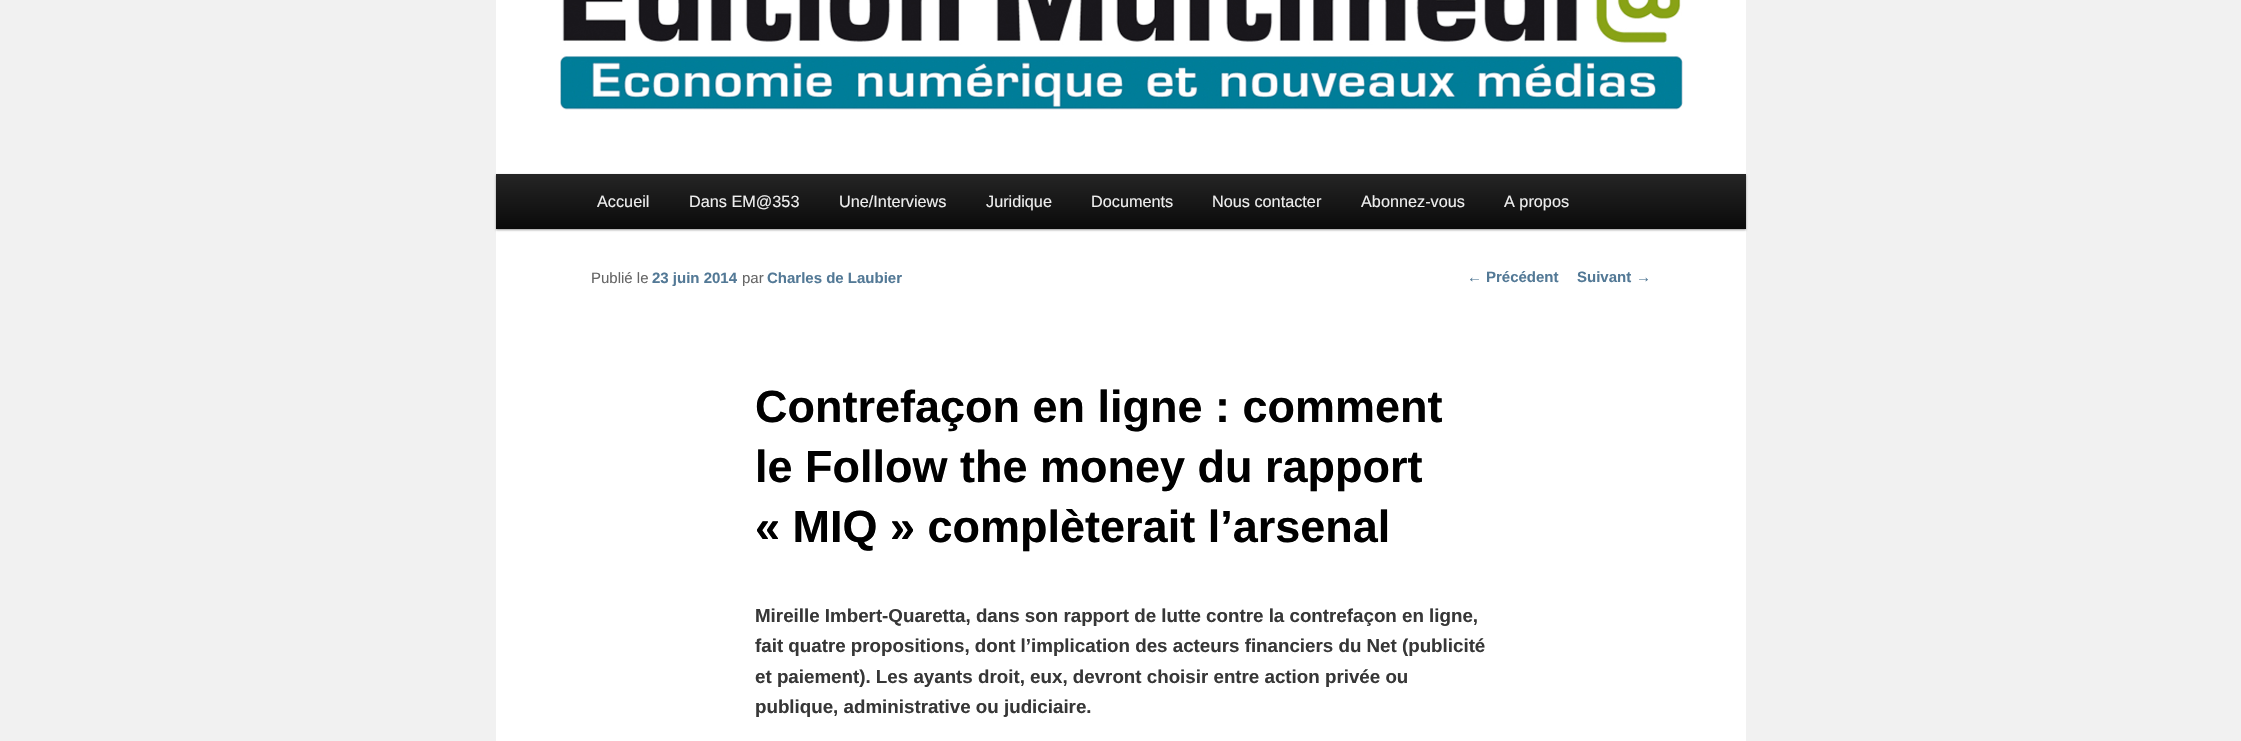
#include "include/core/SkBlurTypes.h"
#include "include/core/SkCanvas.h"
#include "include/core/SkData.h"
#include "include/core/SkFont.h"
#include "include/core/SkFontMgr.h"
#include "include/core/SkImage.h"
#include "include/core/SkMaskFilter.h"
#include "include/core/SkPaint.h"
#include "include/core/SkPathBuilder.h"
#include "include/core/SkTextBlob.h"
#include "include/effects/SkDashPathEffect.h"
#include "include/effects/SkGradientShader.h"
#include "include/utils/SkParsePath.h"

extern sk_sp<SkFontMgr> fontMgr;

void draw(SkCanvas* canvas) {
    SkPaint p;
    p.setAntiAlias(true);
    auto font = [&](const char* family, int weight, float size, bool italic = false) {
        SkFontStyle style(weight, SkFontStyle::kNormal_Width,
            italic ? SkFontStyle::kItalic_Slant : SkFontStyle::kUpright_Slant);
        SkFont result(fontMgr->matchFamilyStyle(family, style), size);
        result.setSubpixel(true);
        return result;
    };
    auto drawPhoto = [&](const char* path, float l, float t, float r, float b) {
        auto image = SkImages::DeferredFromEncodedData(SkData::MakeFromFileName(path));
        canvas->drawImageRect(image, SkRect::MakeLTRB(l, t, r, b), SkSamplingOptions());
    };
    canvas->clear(0xFFF1F1F1);
    p.setColor(0xFFFFFFFF);
    canvas->drawRect(SkRect::MakeLTRB(496, 0, 1746, 741), p);
    drawPhoto("media/1.png", 560, 0, 1683, 110);
    p.setColor(0x66000000);
    p.setMaskFilter(SkMaskFilter::MakeBlur(kNormal_SkBlurStyle, 1));
    canvas->drawRect(SkRect::MakeLTRB(496, 175, 1746, 230), p);
    p.setMaskFilter(nullptr);
    {
        const SkColor colors[] = {0xFF252525, 0xFF0A0A0A};
        const float stops[] = {0, 1};
        const SkPoint ends[] = {{1121, 174}, {1121, 229}};
        p.setShader(SkGradientShader::MakeLinear(ends, colors, stops, 2, SkTileMode::kClamp));
        p.setAlpha(255);
    }
    canvas->drawRect(SkRect::MakeLTRB(496, 174, 1746, 229), p);
    auto font1 = font("Liberation Sans", 400, 16.25f);
    p.setShader(nullptr);
    p.setColor(0xFFEEEEEE);
    {
        const struct { const char* s; float x, y; } items[] = {
            {"Accueil", 597, 207},
            {"Dans EM@353", 689, 207},
            {"Une/Interviews", 839, 207},
            {"Juridique", 986, 207},
            {"Documents", 1091, 207},
            {"Nous contacter", 1212, 207},
            {"Abonnez-vous", 1361, 207},
            {"A propos", 1504, 207},
        };
        for (auto [s, x, y] : items) {
            canvas->drawString(s, x, y, font1, p);
        }
    }
    auto font2 = font("Liberation Sans", 400, 15);
    p.setColor(0xFF666666);
    canvas->drawString("Publié le", 591, 283, font2, p);
    auto font3 = font("Liberation Sans", 700, 15);
    p.setColor(0xFF537996);
    canvas->drawString("23 juin 2014", 652, 283, font3, p);
    p.setColor(0xFF666666);
    canvas->drawString("par", 742, 283, font2, p);
    p.setColor(0xFF537996);
    canvas->drawString("Charles de Laubier", 767, 283, font3, p);
    auto font4 = font("Liberation Sans", 700, 45);
    p.setColor(0xFF000000);
    {
        const struct { const char* s; float x, y; } items[] = {
            {"Contrefaçon en ligne : comment", 755, 422},
            {"le Follow the money du rapport", 755, 482},
            {"« MIQ » complèterait l’arsenal", 755, 542},
        };
        for (auto [s, x, y] : items) {
            canvas->drawString(s, x, y, font4, p);
        }
    }
    auto font5 = font("Liberation Sans", 700, 18.75f);
    p.setColor(0xFF373737);
    {
        const struct { const char* s; float x, y; } items[] = {
            {"Mireille Imbert-Quaretta, dans son rapport de lutte contre la contrefaçon en ligne,", 755, 622},
            {"fait quatre propositions, dont l’implication des acteurs financiers du Net (publicité", 755, 652},
            {"et paiement). Les ayants droit, eux, devront choisir entre action privée ou", 755, 683},
            {"publique, administrative ou judiciaire.", 755, 713},
        };
        for (auto [s, x, y] : items) {
            canvas->drawString(s, x, y, font5, p);
        }
    }
    p.setColor(0xFF537996);
    canvas->drawString("←", 1467, 282, font2, p);
    canvas->drawString("Précédent", 1486, 282, font3, p);
    canvas->drawString("Suivant", 1577, 282, font3, p);
    canvas->drawString("→", 1636, 282, font2, p);
}
